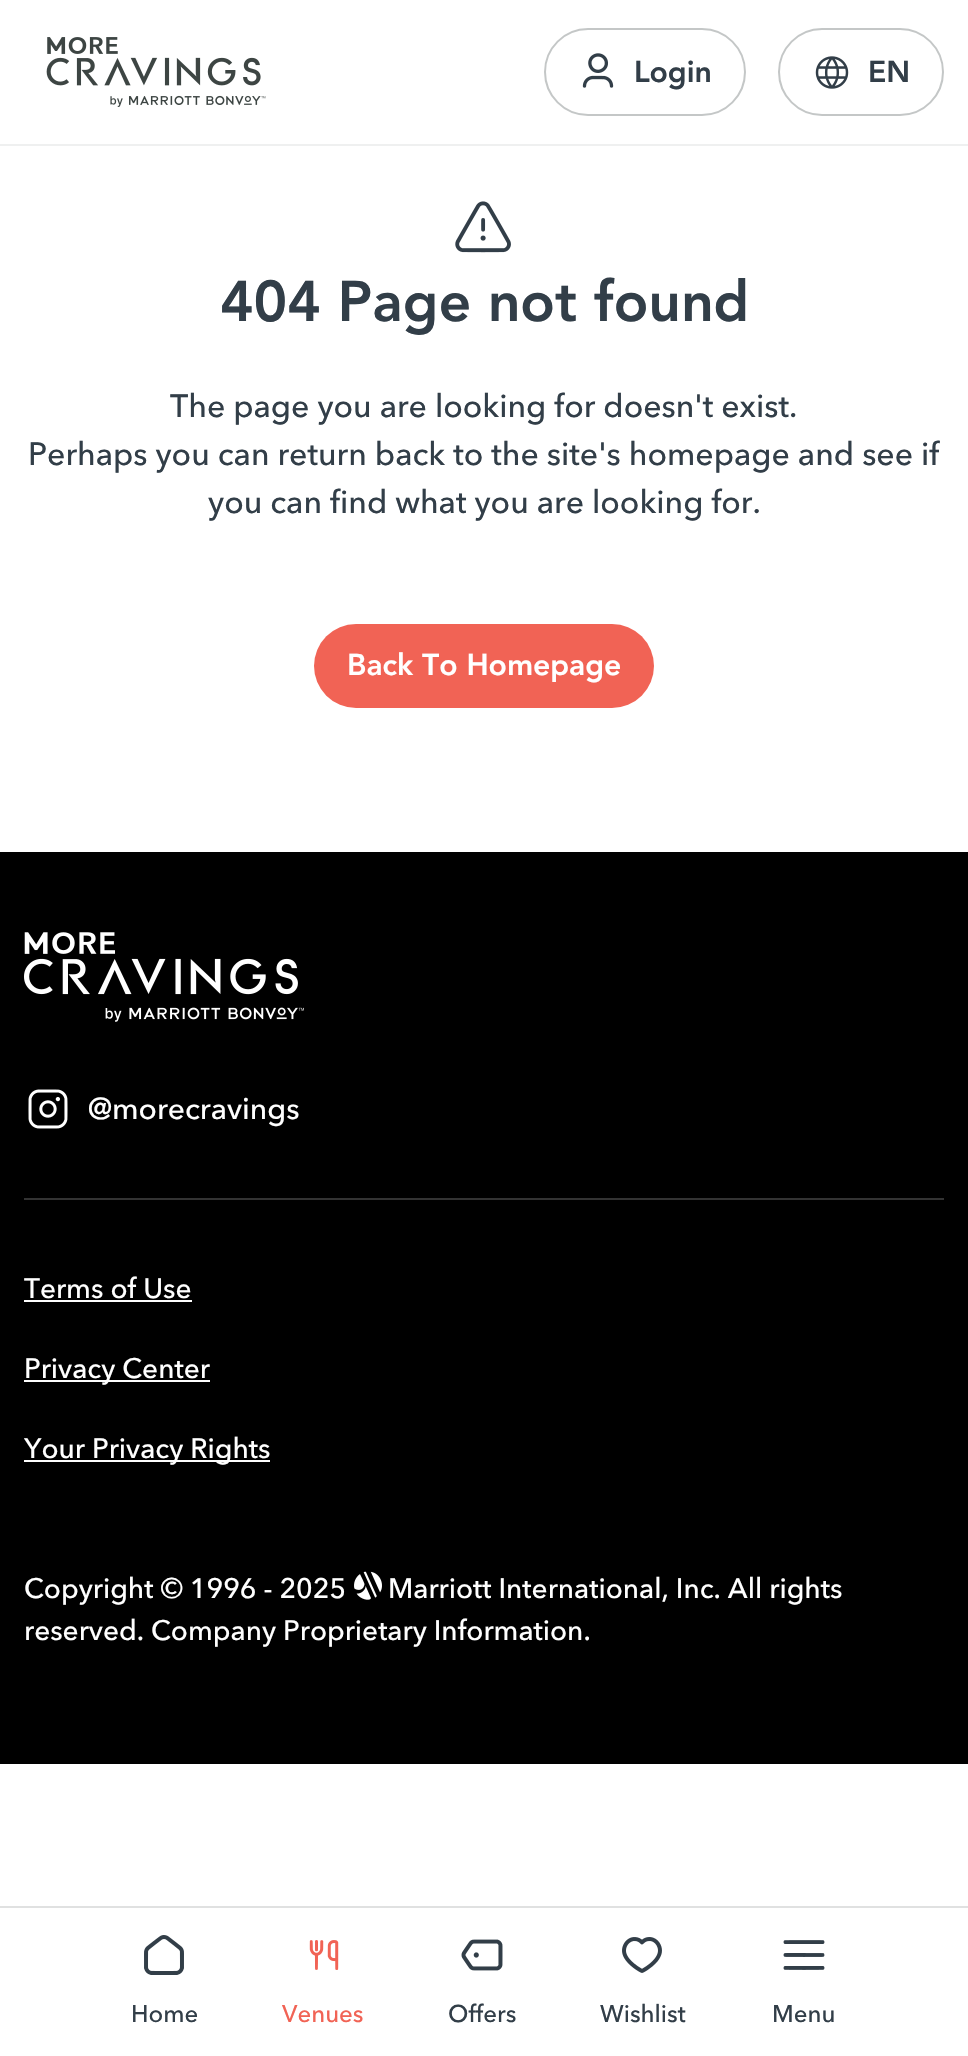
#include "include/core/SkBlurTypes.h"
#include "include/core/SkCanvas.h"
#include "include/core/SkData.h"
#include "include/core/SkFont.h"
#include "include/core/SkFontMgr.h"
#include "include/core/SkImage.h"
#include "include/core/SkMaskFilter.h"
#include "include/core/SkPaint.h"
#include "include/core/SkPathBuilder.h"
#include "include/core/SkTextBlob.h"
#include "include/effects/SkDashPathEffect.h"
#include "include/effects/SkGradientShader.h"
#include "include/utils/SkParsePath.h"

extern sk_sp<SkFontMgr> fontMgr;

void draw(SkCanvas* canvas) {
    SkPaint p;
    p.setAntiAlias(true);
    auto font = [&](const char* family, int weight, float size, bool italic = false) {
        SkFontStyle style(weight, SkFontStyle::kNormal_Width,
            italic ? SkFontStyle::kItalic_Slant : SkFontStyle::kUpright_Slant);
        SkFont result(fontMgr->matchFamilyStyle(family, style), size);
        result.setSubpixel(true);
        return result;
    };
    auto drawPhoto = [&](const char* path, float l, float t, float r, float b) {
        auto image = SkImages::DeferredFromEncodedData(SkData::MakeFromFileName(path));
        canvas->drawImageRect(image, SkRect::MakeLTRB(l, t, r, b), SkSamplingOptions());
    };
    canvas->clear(0xFFFFFFFF);
    p.setColor(0xFFEFF0F0);
    canvas->drawRect(SkRect::MakeLTRB(0, 144, 968, 146), p);
    drawPhoto("media/1.png", 46, 37, 266, 107);
    p.setStyle(SkPaint::kStroke_Style);
    p.setStrokeWidth(2);
    p.setColor(0xFFC4C7C7);
    canvas->drawRoundRect(SkRect::MakeLTRB(545, 29, 745, 115), 43, 43, p);
    drawPhoto("media/2.png", 582, 53, 614, 88);
    auto font1 = font("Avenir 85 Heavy", 900, 30);
    p.setStyle(SkPaint::kFill_Style);
    p.setColor(0xFF323E48);
    canvas->drawString("Login", 634, 82, font1, p);
    p.setStyle(SkPaint::kStroke_Style);
    p.setColor(0xFFC4C7C7);
    canvas->drawRoundRect(SkRect::MakeLTRB(779, 29, 943, 115), 43, 43, p);
    drawPhoto("media/3.png", 815, 56, 849, 89);
    p.setStyle(SkPaint::kFill_Style);
    p.setColor(0xFF323E48);
    canvas->drawString("EN", 868, 82, font1, p);
    drawPhoto("media/4.png", 455, 201, 511, 253);
    auto font2 = font("Avenir 85 Heavy", 900, 56.75f);
    canvas->drawString("404 Page not found", 220, 321, font2, p);
    auto font3 = font("Avenir Next", 500, 32);
    {
        const struct { const char* s; float x, y; } items[] = {
            {"The page you are looking for doesn't exist.", 170, 417},
            {"Perhaps you can return back to the site's homepage and see if", 28, 465},
            {"you can find what you are looking for.", 208, 513},
        };
        for (auto [s, x, y] : items) {
            canvas->drawString(s, x, y, font3, p);
        }
    }
    p.setColor(0xFFF16355);
    canvas->drawRoundRect(SkRect::MakeLTRB(314, 624, 654, 708), 42, 42, p);
    p.setColor(0xFFFFFFFF);
    canvas->drawString("Back To Homepage", 347, 675, font1, p);
    p.setColor(0xFF000000);
    canvas->drawRect(SkRect::MakeLTRB(0, 852, 968, 1764), p);
    drawPhoto("media/5.png", 24, 932, 304, 1022);
    drawPhoto("media/6.png", 28, 1089, 68, 1129);
    auto font4 = font("Avenir Next", 500, 30);
    p.setColor(0xFFFFFFFF);
    canvas->drawString("@morecravings", 88, 1119, font4, p);
    p.setColor(0xFF333333);
    canvas->drawRect(SkRect::MakeLTRB(24, 1198, 944, 1200), p);
    auto font5 = font("Avenir Next", 500, 28);
    p.setColor(0xFFFFFFFF);
    canvas->drawString("Terms of Use", 24, 1298, font5, p);
    canvas->drawRect(SkRect::MakeLTRB(24, 1300, 192, 1302), p);
    canvas->drawRect(SkRect::MakeLTRB(24, 1380, 210, 1382), p);
    canvas->drawString("Privacy Center", 24, 1378, font5, p);
    canvas->drawRect(SkRect::MakeLTRB(24, 1460, 270, 1462), p);
    canvas->drawString("Your Privacy Rights", 24, 1458, font5, p);
    canvas->drawString("Copyright © 1996 - 2025", 24, 1598, font5, p);
    drawPhoto("media/7.png", 354, 1571, 382, 1600);
    canvas->drawString("Marriott International, Inc. All rights", 388, 1598, font5, p);
    canvas->drawString("reserved. Company Proprietary Information.", 24, 1640, font5, p);
    p.setColor(0xFFE0E1E1);
    canvas->drawRect(SkRect::MakeLTRB(0, 1906, 968, 1908), p);
    drawPhoto("media/8.png", 144, 1935, 184, 1975);
    auto font6 = font("Avenir Next", 500, 24);
    p.setColor(0xFF323E48);
    canvas->drawString("Home", 131, 2022, font6, p);
    drawPhoto("media/9.png", 309, 1940, 339, 1970);
    p.setColor(0xFFF16355);
    canvas->drawString("Venues", 282, 2022, font6, p);
    drawPhoto("media/10.png", 461, 1939, 503, 1971);
    p.setColor(0xFF323E48);
    canvas->drawString("Offers", 448, 2022, font6, p);
    drawPhoto("media/11.png", 622, 1937, 662, 1973);
    canvas->drawString("Wishlist", 600, 2022, font6, p);
    drawPhoto("media/12.png", 783, 1940, 825, 1970);
    canvas->drawString("Menu", 772, 2022, font6, p);
}
